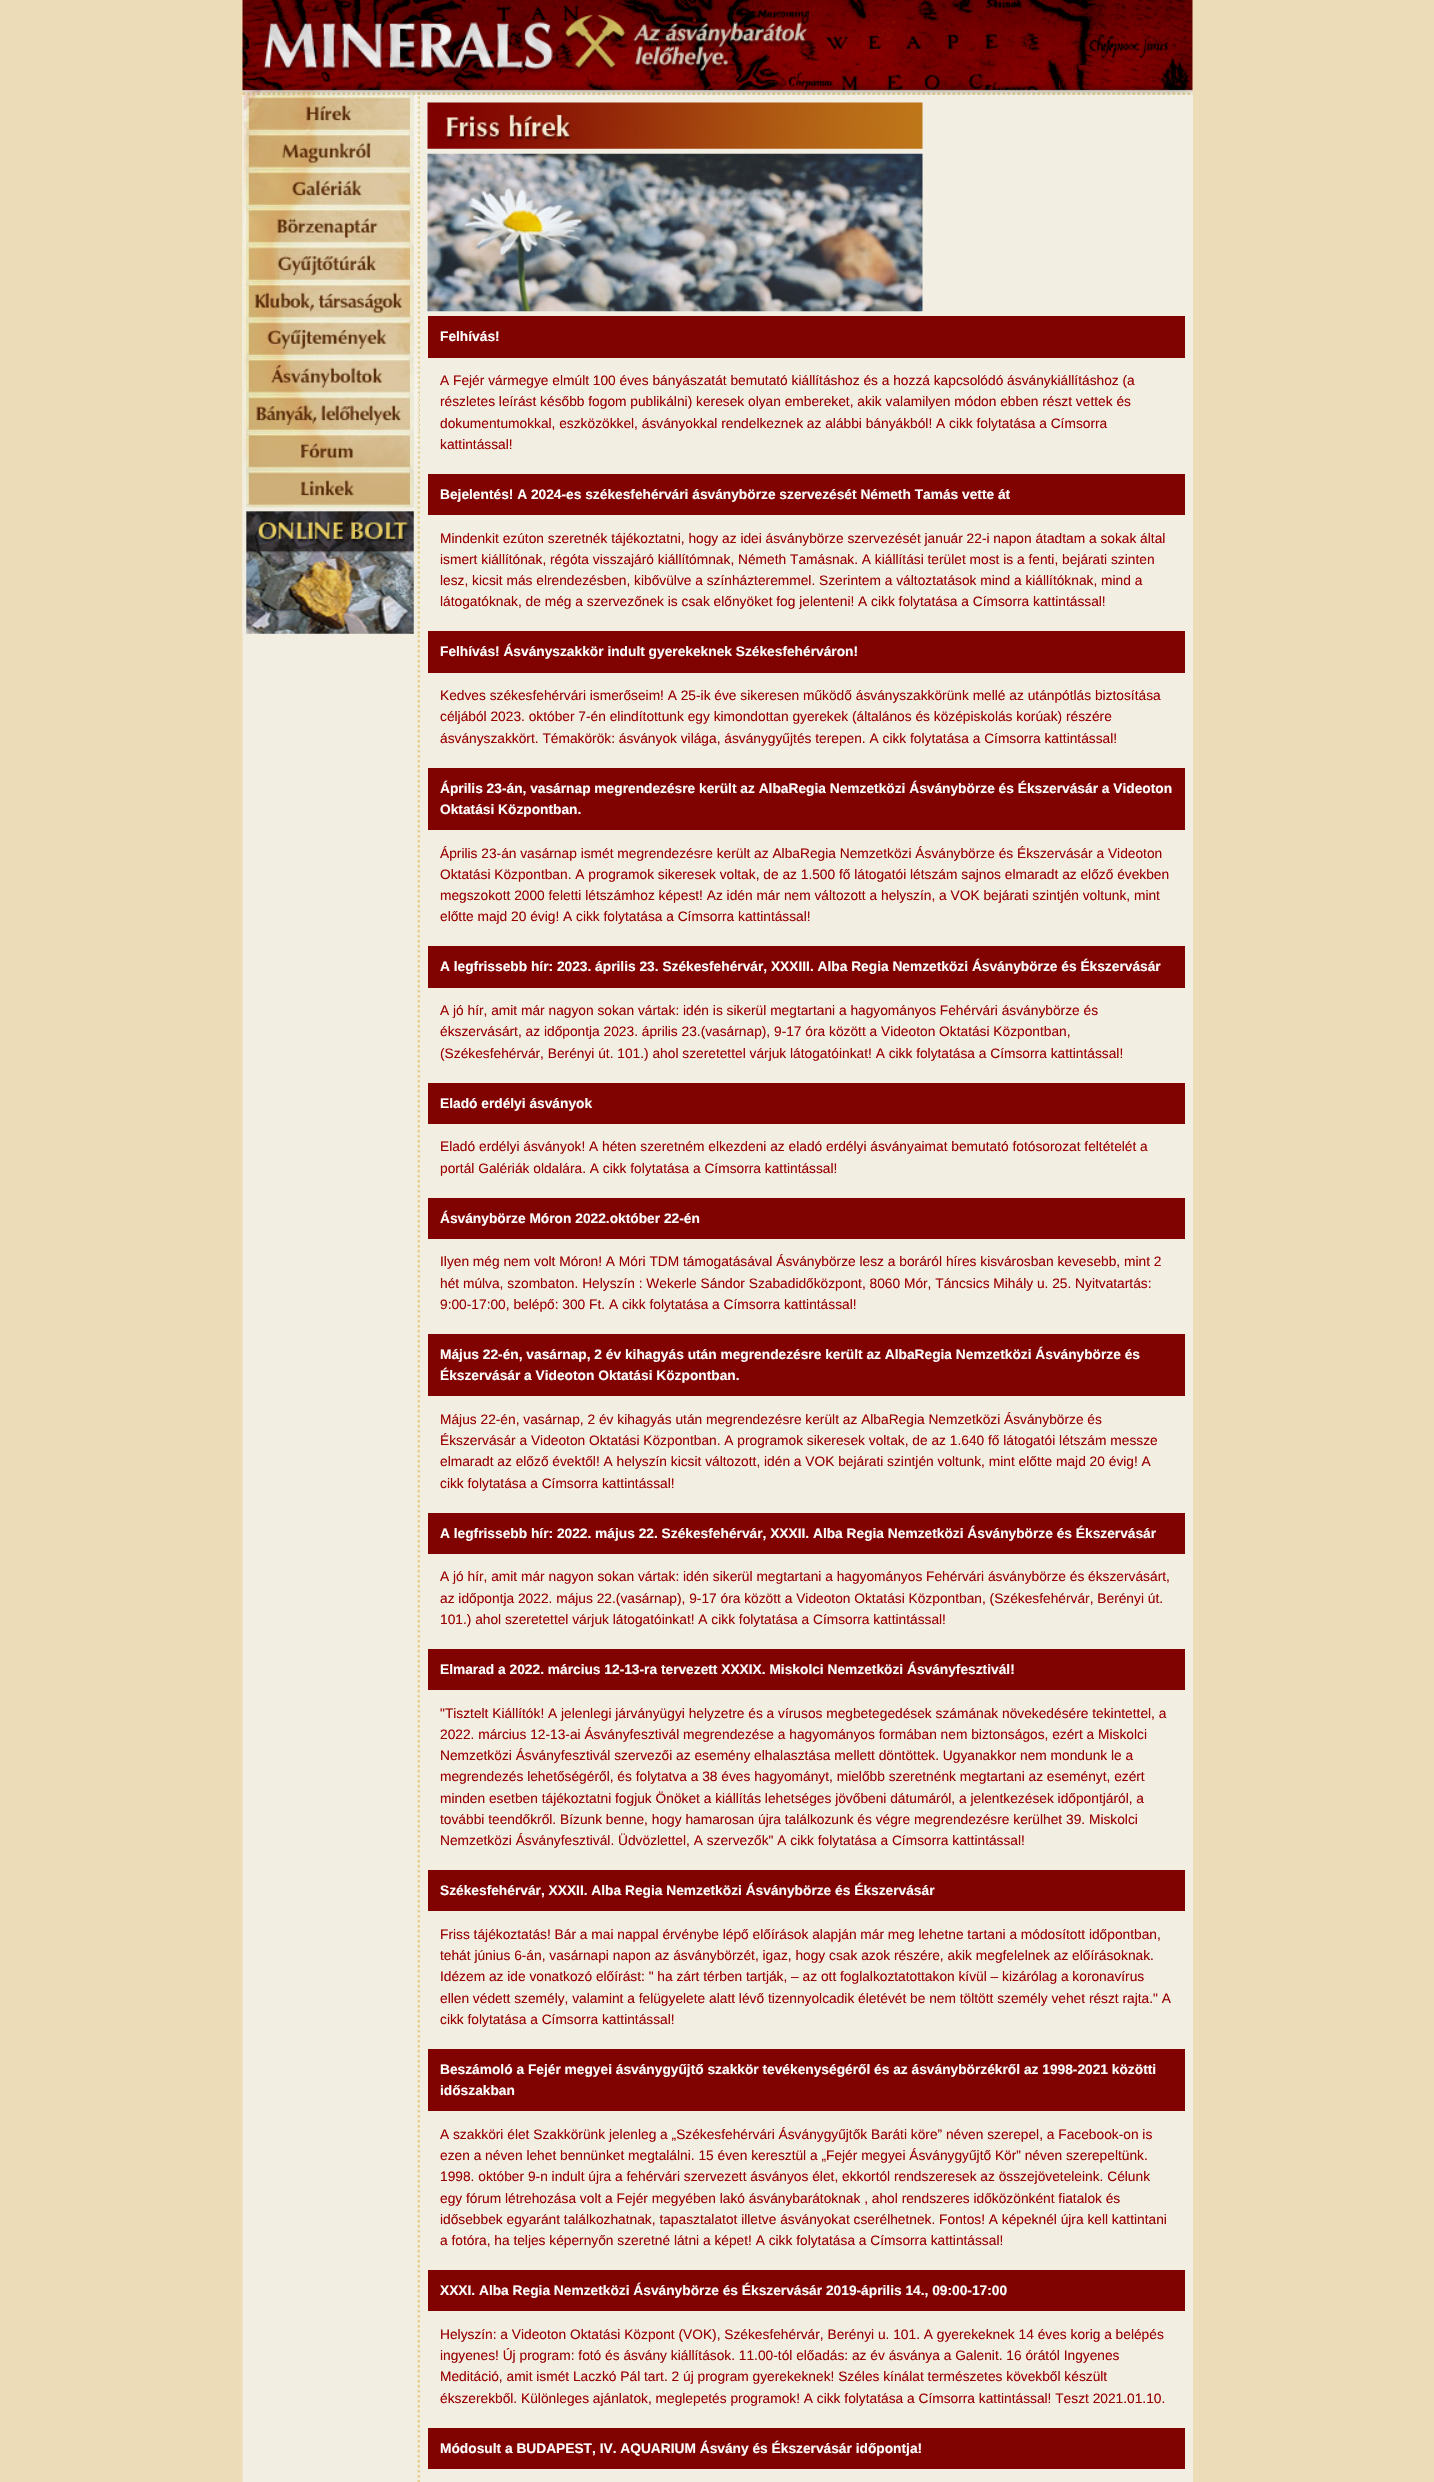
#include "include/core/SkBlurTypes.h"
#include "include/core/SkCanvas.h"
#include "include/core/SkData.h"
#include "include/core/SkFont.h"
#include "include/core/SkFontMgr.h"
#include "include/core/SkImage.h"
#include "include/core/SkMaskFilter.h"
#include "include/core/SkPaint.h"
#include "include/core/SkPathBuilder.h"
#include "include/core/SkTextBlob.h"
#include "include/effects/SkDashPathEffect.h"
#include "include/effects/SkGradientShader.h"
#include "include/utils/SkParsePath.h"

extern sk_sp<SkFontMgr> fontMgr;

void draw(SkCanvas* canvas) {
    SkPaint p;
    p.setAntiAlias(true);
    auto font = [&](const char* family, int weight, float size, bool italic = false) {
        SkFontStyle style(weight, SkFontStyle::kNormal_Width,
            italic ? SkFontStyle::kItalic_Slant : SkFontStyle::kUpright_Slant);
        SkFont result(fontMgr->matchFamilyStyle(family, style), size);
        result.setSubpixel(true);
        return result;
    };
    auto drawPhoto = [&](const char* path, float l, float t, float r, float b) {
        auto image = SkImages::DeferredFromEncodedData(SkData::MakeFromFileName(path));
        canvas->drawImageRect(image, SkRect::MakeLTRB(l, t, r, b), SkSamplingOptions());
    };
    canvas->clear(0xFFECDCB8);
    drawPhoto("media/1.png", 242, 0, 1193, 95);
    drawPhoto("media/2.png", 242, 95, 420, 2482);
    drawPhoto("media/3.png", 242, 95, 420, 133);
    drawPhoto("media/4.png", 242, 132, 420, 170);
    drawPhoto("media/5.png", 242, 170, 420, 208);
    drawPhoto("media/6.png", 242, 207, 420, 245);
    drawPhoto("media/7.png", 242, 245, 420, 283);
    drawPhoto("media/8.png", 242, 282, 420, 320);
    drawPhoto("media/9.png", 242, 320, 420, 358);
    drawPhoto("media/10.png", 242, 357, 420, 395);
    drawPhoto("media/11.png", 242, 395, 420, 433);
    drawPhoto("media/12.png", 242, 432, 420, 470);
    drawPhoto("media/13.png", 242, 470, 420, 508);
    drawPhoto("media/14.png", 242, 507, 420, 634);
    p.setColor(0xFFF2EEE2);
    canvas->drawRect(SkRect::MakeLTRB(420, 95, 1193, 2482), p);
    drawPhoto("media/15.png", 427, 102, 923, 149);
    drawPhoto("media/16.png", 427, 153, 923, 312);
    p.setColor(0xFF800301);
    canvas->drawRect(SkRect::MakeLTRB(428, 316, 1185, 358), p);
    auto font1 = font("Liberation Sans", 700, 13.75f);
    p.setColor(0xFFFFFFFF);
    canvas->drawString("Felhívás!", 440, 341, font1, p);
    auto font2 = font("Liberation Sans", 400, 13.75f);
    p.setColor(0xFF990000);
    {
        const struct { const char* s; float x, y; } items[] = {
            {"A Fejér vármegye elmúlt 100 éves bányászatát bemutató kiállításhoz és a hozzá kapcsolódó ásványkiállításhoz (a", 440, 385},
            {"részletes leírást később fogom publikálni) keresek olyan embereket, akik valamilyen módon ebben részt vettek és", 440, 406},
            {"dokumentumokkal, eszközökkel, ásványokkal rendelkeznek az alábbi bányákból! A cikk folytatása a Címsorra", 440, 428},
            {"kattintással!", 440, 449},
        };
        for (auto [s, x, y] : items) {
            canvas->drawString(s, x, y, font2, p);
        }
    }
    p.setColor(0xFF800301);
    canvas->drawRect(SkRect::MakeLTRB(428, 474, 1185, 515), p);
    p.setColor(0xFFFFFFFF);
    canvas->drawString("Bejelentés! A 2024-es székesfehérvári ásványbörze szervezését Németh Tamás vette át", 440, 499, font1, p);
    p.setColor(0xFF990000);
    {
        const struct { const char* s; float x, y; } items[] = {
            {"Mindenkit ezúton szeretnék tájékoztatni, hogy az idei ásványbörze szervezését január 22-i napon átadtam a sokak által", 440, 543},
            {"ismert kiállítónak, régóta visszajáró kiállítómnak, Németh Tamásnak. A kiállítási terület most is a fenti, bejárati szinten", 440, 564},
            {"lesz, kicsit más elrendezésben, kibővülve a színházteremmel. Szerintem a változtatások mind a kiállítóknak, mind a", 440, 585},
            {"látogatóknak, de még a szervezőnek is csak előnyöket fog jelenteni! A cikk folytatása a Címsorra kattintással!", 440, 606},
        };
        for (auto [s, x, y] : items) {
            canvas->drawString(s, x, y, font2, p);
        }
    }
    p.setColor(0xFF800301);
    canvas->drawRect(SkRect::MakeLTRB(428, 631, 1185, 673), p);
    p.setColor(0xFFFFFFFF);
    canvas->drawString("Felhívás! Ásványszakkör indult gyerekeknek Székesfehérváron!", 440, 656, font1, p);
    p.setColor(0xFF990000);
    {
        const struct { const char* s; float x, y; } items[] = {
            {"Kedves székesfehérvári ismerőseim! A 25-ik éve sikeresen működő ásványszakkörünk mellé az utánpótlás biztosítása", 440, 700},
            {"céljából 2023. október 7-én elindítottunk egy kimondottan gyerekek (általános és középiskolás korúak) részére", 440, 721},
            {"ásványszakkört. Témakörök: ásványok világa, ásványgyűjtés terepen. A cikk folytatása a Címsorra kattintással!", 440, 743},
        };
        for (auto [s, x, y] : items) {
            canvas->drawString(s, x, y, font2, p);
        }
    }
    p.setColor(0xFF800301);
    canvas->drawRect(SkRect::MakeLTRB(428, 768, 1185, 830), p);
    p.setColor(0xFFFFFFFF);
    canvas->drawString("Április 23-án, vasárnap megrendezésre került az AlbaRegia Nemzetközi Ásványbörze és Ékszervásár a Videoton", 440, 793, font1, p);
    canvas->drawString("Oktatási Központban.", 440, 814, font1, p);
    p.setColor(0xFF990000);
    {
        const struct { const char* s; float x, y; } items[] = {
            {"Április 23-án vasárnap ismét megrendezésre került az AlbaRegia Nemzetközi Ásványbörze és Ékszervásár a Videoton", 440, 858},
            {"Oktatási Központban. A programok sikeresek voltak, de az 1.500 fő látogatói létszám sajnos elmaradt az előző években", 440, 879},
            {"megszokott 2000 feletti létszámhoz képest! Az idén már nem változott a helyszín, a VOK bejárati szintjén voltunk, mint", 440, 900},
            {"előtte majd 20 évig! A cikk folytatása a Címsorra kattintással!", 440, 921},
        };
        for (auto [s, x, y] : items) {
            canvas->drawString(s, x, y, font2, p);
        }
    }
    p.setColor(0xFF800301);
    canvas->drawRect(SkRect::MakeLTRB(428, 946, 1185, 988), p);
    p.setColor(0xFFFFFFFF);
    canvas->drawString("A legfrissebb hír: 2023. április 23. Székesfehérvár, XXXIII. Alba Regia Nemzetközi Ásványbörze és Ékszervásár", 440, 971, font1, p);
    p.setColor(0xFF990000);
    {
        const struct { const char* s; float x, y; } items[] = {
            {"A jó hír, amit már nagyon sokan vártak: idén is sikerül megtartani a hagyományos Fehérvári ásványbörze és", 440, 1015},
            {"ékszervásárt, az időpontja 2023. április 23.(vasárnap), 9-17 óra között a Videoton Oktatási Központban,", 440, 1036},
            {"(Székesfehérvár, Berényi út. 101.) ahol szeretettel várjuk látogatóinkat! A cikk folytatása a Címsorra kattintással!", 440, 1058},
        };
        for (auto [s, x, y] : items) {
            canvas->drawString(s, x, y, font2, p);
        }
    }
    p.setColor(0xFF800301);
    canvas->drawRect(SkRect::MakeLTRB(428, 1083, 1185, 1124), p);
    p.setColor(0xFFFFFFFF);
    canvas->drawString("Eladó erdélyi ásványok", 440, 1108, font1, p);
    p.setColor(0xFF990000);
    canvas->drawString("Eladó erdélyi ásványok! A héten szeretném elkezdeni az eladó erdélyi ásványaimat bemutató fotósorozat feltételét a", 440, 1151, font2, p);
    canvas->drawString("portál Galériák oldalára. A cikk folytatása a Címsorra kattintással!", 440, 1173, font2, p);
    p.setColor(0xFF800301);
    canvas->drawRect(SkRect::MakeLTRB(428, 1198, 1185, 1239), p);
    p.setColor(0xFFFFFFFF);
    canvas->drawString("Ásványbörze Móron 2022.október 22-én", 440, 1223, font1, p);
    p.setColor(0xFF990000);
    {
        const struct { const char* s; float x, y; } items[] = {
            {"Ilyen még nem volt Móron! A Móri TDM támogatásával Ásványbörze lesz a boráról híres kisvárosban kevesebb, mint 2", 440, 1266},
            {"hét múlva, szombaton. Helyszín : Wekerle Sándor Szabadidőközpont, 8060 Mór, Táncsics Mihály u. 25. Nyitvatartás:", 440, 1288},
            {"9:00-17:00, belépő: 300 Ft. A cikk folytatása a Címsorra kattintással!", 440, 1309},
        };
        for (auto [s, x, y] : items) {
            canvas->drawString(s, x, y, font2, p);
        }
    }
    p.setColor(0xFF800301);
    canvas->drawRect(SkRect::MakeLTRB(428, 1334, 1185, 1396), p);
    p.setColor(0xFFFFFFFF);
    canvas->drawString("Május 22-én, vasárnap, 2 év kihagyás után megrendezésre került az AlbaRegia Nemzetközi Ásványbörze és", 440, 1359, font1, p);
    canvas->drawString("Ékszervásár a Videoton Oktatási Központban.", 440, 1380, font1, p);
    p.setColor(0xFF990000);
    {
        const struct { const char* s; float x, y; } items[] = {
            {"Május 22-én, vasárnap, 2 év kihagyás után megrendezésre került az AlbaRegia Nemzetközi Ásványbörze és", 440, 1424},
            {"Ékszervásár a Videoton Oktatási Központban. A programok sikeresek voltak, de az 1.640 fő látogatói létszám messze", 440, 1445},
            {"elmaradt az előző évektől! A helyszín kicsit változott, idén a VOK bejárati szintjén voltunk, mint előtte majd 20 évig! A", 440, 1466},
            {"cikk folytatása a Címsorra kattintással!", 440, 1488},
        };
        for (auto [s, x, y] : items) {
            canvas->drawString(s, x, y, font2, p);
        }
    }
    p.setColor(0xFF800301);
    canvas->drawRect(SkRect::MakeLTRB(428, 1513, 1185, 1554), p);
    p.setColor(0xFFFFFFFF);
    canvas->drawString("A legfrissebb hír: 2022. május 22. Székesfehérvár, XXXII. Alba Regia Nemzetközi Ásványbörze és Ékszervásár", 440, 1538, font1, p);
    p.setColor(0xFF990000);
    {
        const struct { const char* s; float x, y; } items[] = {
            {"A jó hír, amit már nagyon sokan vártak: idén sikerül megtartani a hagyományos Fehérvári ásványbörze és ékszervásárt,", 440, 1581},
            {"az időpontja 2022. május 22.(vasárnap), 9-17 óra között a Videoton Oktatási Központban, (Székesfehérvár, Berényi út.", 440, 1603},
            {"101.) ahol szeretettel várjuk látogatóinkat! A cikk folytatása a Címsorra kattintással!", 440, 1624},
        };
        for (auto [s, x, y] : items) {
            canvas->drawString(s, x, y, font2, p);
        }
    }
    p.setColor(0xFF800301);
    canvas->drawRect(SkRect::MakeLTRB(428, 1649, 1185, 1690), p);
    p.setColor(0xFFFFFFFF);
    canvas->drawString("Elmarad a 2022. március 12-13-ra tervezett XXXIX. Miskolci Nemzetközi Ásványfesztivál!", 440, 1674, font1, p);
    p.setColor(0xFF990000);
    {
        const struct { const char* s; float x, y; } items[] = {
            {"\"Tisztelt Kiállítók! A jelenlegi járványügyi helyzetre és a vírusos megbetegedések számának növekedésére tekintettel, a", 440, 1718},
            {"2022. március 12-13-ai Ásványfesztivál megrendezése a hagyományos formában nem biztonságos, ezért a Miskolci", 440, 1739},
            {"Nemzetközi Ásványfesztivál szervezői az esemény elhalasztása mellett döntöttek. Ugyanakkor nem mondunk le a", 440, 1760},
            {"megrendezés lehetőségéről, és folytatva a 38 éves hagyományt, mielőbb szeretnénk megtartani az eseményt, ezért", 440, 1781},
            {"minden esetben tájékoztatni fogjuk Önöket a kiállítás lehetséges jövőbeni dátumáról, a jelentkezések időpontjáról, a", 440, 1803},
            {"további teendőkről. Bízunk benne, hogy hamarosan újra találkozunk és végre megrendezésre kerülhet 39. Miskolci", 440, 1824},
            {"Nemzetközi Ásványfesztivál. Üdvözlettel, A szervezők\" A cikk folytatása a Címsorra kattintással!", 440, 1845},
        };
        for (auto [s, x, y] : items) {
            canvas->drawString(s, x, y, font2, p);
        }
    }
    p.setColor(0xFF800301);
    canvas->drawRect(SkRect::MakeLTRB(428, 1870, 1185, 1911), p);
    p.setColor(0xFFFFFFFF);
    canvas->drawString("Székesfehérvár, XXXII. Alba Regia Nemzetközi Ásványbörze és Ékszervásár", 440, 1895, font1, p);
    p.setColor(0xFF990000);
    {
        const struct { const char* s; float x, y; } items[] = {
            {"Friss tájékoztatás! Bár a mai nappal érvénybe lépő előírások alapján már meg lehetne tartani a módosított időpontban,", 440, 1939},
            {"tehát június 6-án, vasárnapi napon az ásványbörzét, igaz, hogy csak azok részére, akik megfelelnek az előírásoknak.", 440, 1960},
            {"Idézem az ide vonatkozó előírást: \" ha zárt térben tartják, – az ott foglalkoztatottakon kívül – kizárólag a koronavírus", 440, 1981},
            {"ellen védett személy, valamint a felügyelete alatt lévő tizennyolcadik életévét be nem töltött személy vehet részt rajta.\" A", 440, 2003},
            {"cikk folytatása a Címsorra kattintással!", 440, 2024},
        };
        for (auto [s, x, y] : items) {
            canvas->drawString(s, x, y, font2, p);
        }
    }
    p.setColor(0xFF800301);
    canvas->drawRect(SkRect::MakeLTRB(428, 2049, 1185, 2111), p);
    p.setColor(0xFFFFFFFF);
    canvas->drawString("Beszámoló a Fejér megyei ásványgyűjtő szakkör tevékenységéről és az ásványbörzékről az 1998-2021 közötti", 440, 2074, font1, p);
    canvas->drawString("időszakban", 440, 2095, font1, p);
    p.setColor(0xFF990000);
    {
        const struct { const char* s; float x, y; } items[] = {
            {"A szakköri élet Szakkörünk jelenleg a „Székesfehérvári Ásványgyűjtők Baráti köre” néven szerepel, a Facebook-on is", 440, 2139},
            {"ezen a néven lehet bennünket megtalálni. 15 éven keresztül a „Fejér megyei Ásványgyűjtő Kör” néven szerepeltünk.", 440, 2160},
            {"1998. október 9-n indult újra a fehérvári szervezett ásványos élet, ekkortól rendszeresek az összejöveteleink. Célunk", 440, 2181},
            {"egy fórum létrehozása volt a Fejér megyében lakó ásványbarátoknak , ahol rendszeres időközönként fiatalok és", 440, 2203},
            {"idősebbek egyaránt találkozhatnak, tapasztalatot illetve ásványokat cserélhetnek. Fontos! A képeknél újra kell kattintani", 440, 2224},
            {"a fotóra, ha teljes képernyőn szeretné látni a képet! A cikk folytatása a Címsorra kattintással!", 440, 2245},
        };
        for (auto [s, x, y] : items) {
            canvas->drawString(s, x, y, font2, p);
        }
    }
    p.setColor(0xFF800301);
    canvas->drawRect(SkRect::MakeLTRB(428, 2270, 1185, 2311), p);
    p.setColor(0xFFFFFFFF);
    canvas->drawString("XXXI. Alba Regia Nemzetközi Ásványbörze és Ékszervásár 2019-április 14., 09:00-17:00", 440, 2295, font1, p);
    p.setColor(0xFF990000);
    {
        const struct { const char* s; float x, y; } items[] = {
            {"Helyszín: a Videoton Oktatási Központ (VOK), Székesfehérvár, Berényi u. 101. A gyerekeknek 14 éves korig a belépés", 440, 2339},
            {"ingyenes! Új program: fotó és ásvány kiállítások. 11.00-tól előadás: az év ásványa a Galenit. 16 órától Ingyenes", 440, 2360},
            {"Meditáció, amit ismét Laczkó Pál tart. 2 új program gyerekeknek! Széles kínálat természetes kövekből készült", 440, 2381},
            {"ékszerekből. Különleges ajánlatok, meglepetés programok! A cikk folytatása a Címsorra kattintással! Teszt 2021.01.10.", 440, 2403},
        };
        for (auto [s, x, y] : items) {
            canvas->drawString(s, x, y, font2, p);
        }
    }
    p.setColor(0xFF800301);
    canvas->drawRect(SkRect::MakeLTRB(428, 2428, 1185, 2469), p);
    p.setColor(0xFFFFFFFF);
    canvas->drawString("Módosult a BUDAPEST, IV. AQUARIUM Ásvány és Ékszervásár időpontja!", 440, 2453, font1, p);
}
